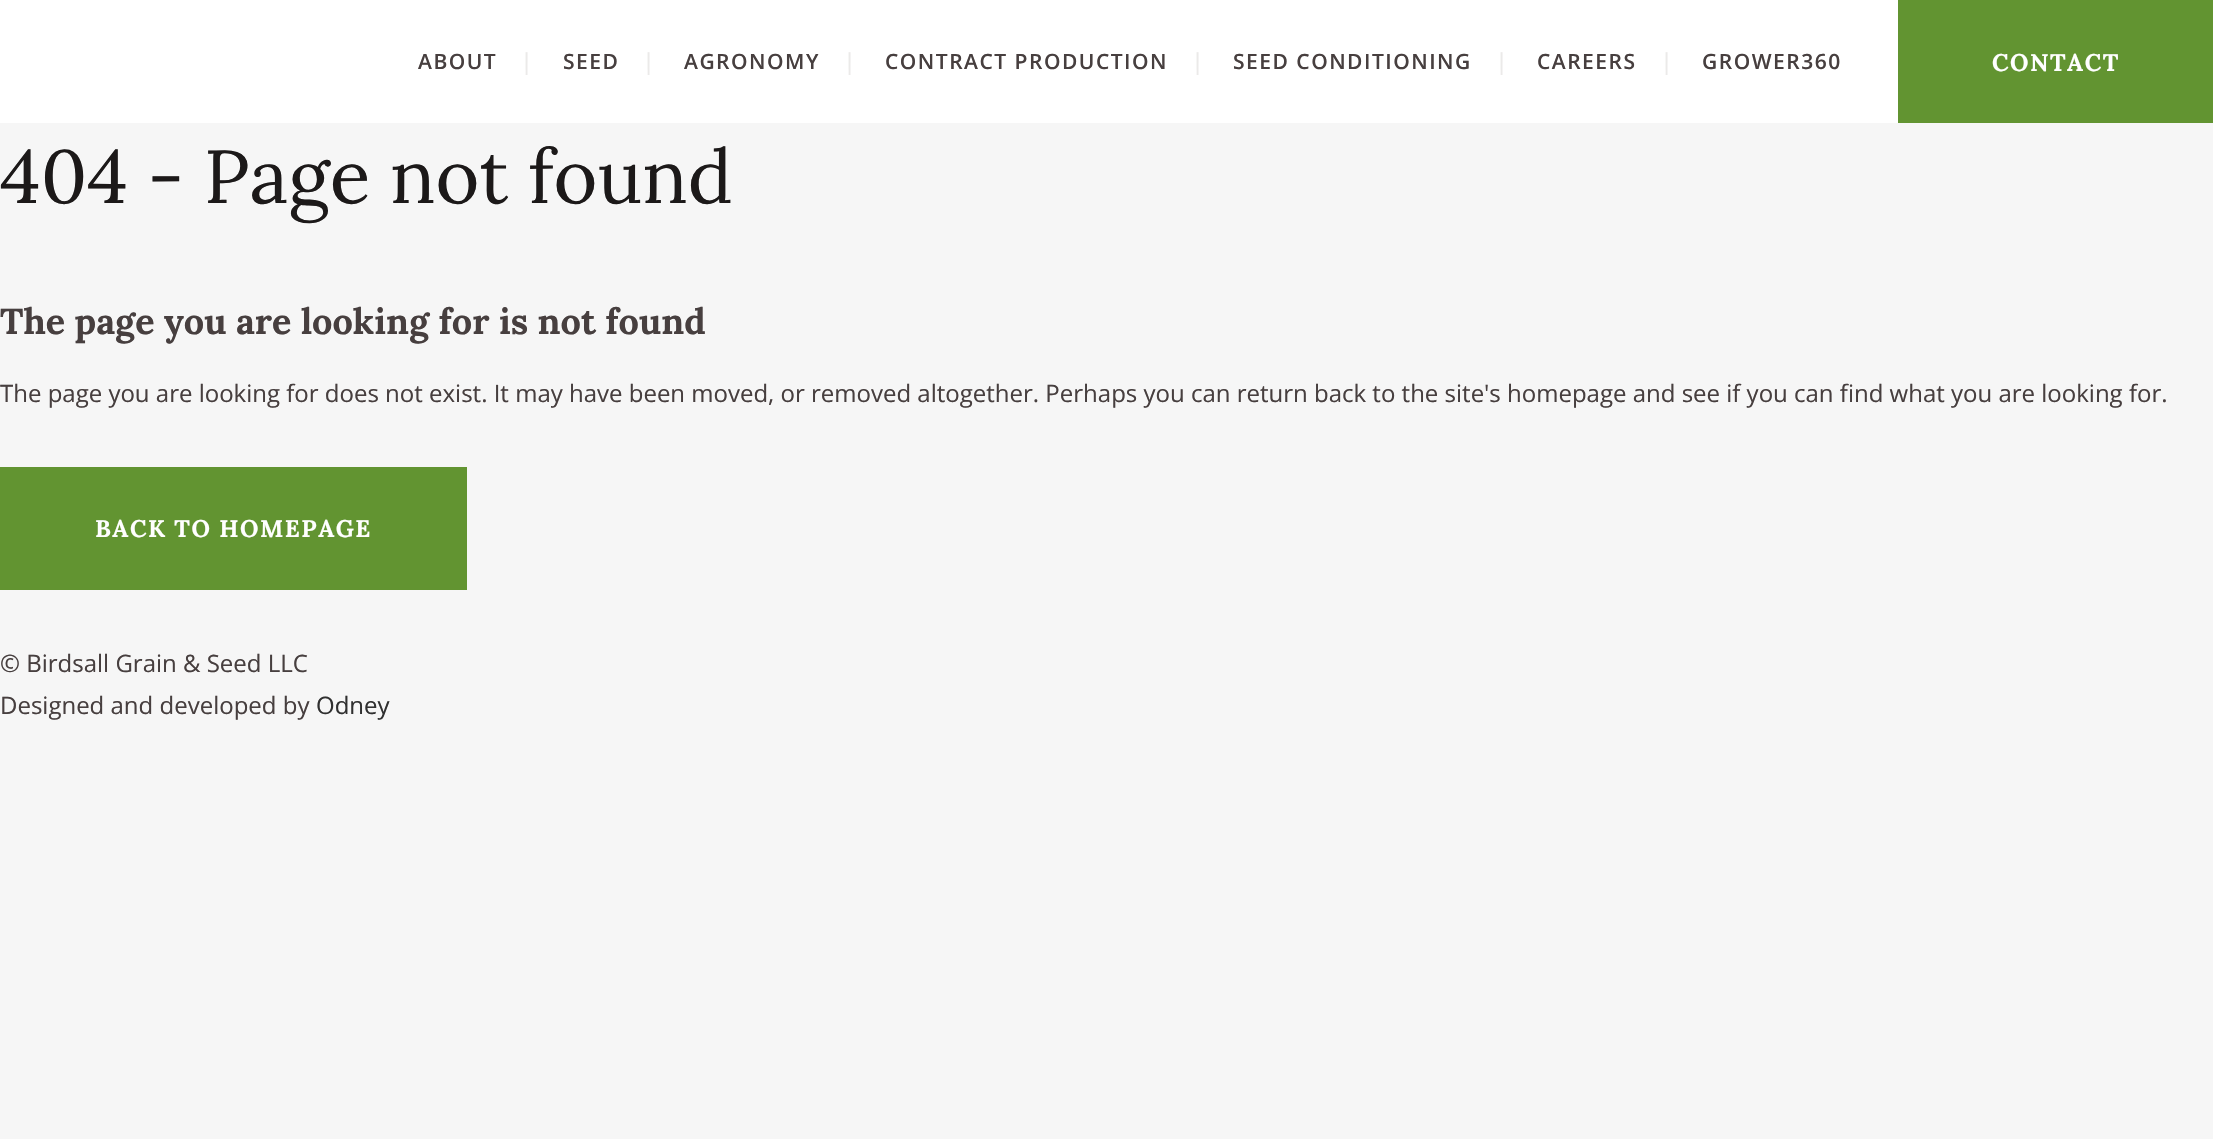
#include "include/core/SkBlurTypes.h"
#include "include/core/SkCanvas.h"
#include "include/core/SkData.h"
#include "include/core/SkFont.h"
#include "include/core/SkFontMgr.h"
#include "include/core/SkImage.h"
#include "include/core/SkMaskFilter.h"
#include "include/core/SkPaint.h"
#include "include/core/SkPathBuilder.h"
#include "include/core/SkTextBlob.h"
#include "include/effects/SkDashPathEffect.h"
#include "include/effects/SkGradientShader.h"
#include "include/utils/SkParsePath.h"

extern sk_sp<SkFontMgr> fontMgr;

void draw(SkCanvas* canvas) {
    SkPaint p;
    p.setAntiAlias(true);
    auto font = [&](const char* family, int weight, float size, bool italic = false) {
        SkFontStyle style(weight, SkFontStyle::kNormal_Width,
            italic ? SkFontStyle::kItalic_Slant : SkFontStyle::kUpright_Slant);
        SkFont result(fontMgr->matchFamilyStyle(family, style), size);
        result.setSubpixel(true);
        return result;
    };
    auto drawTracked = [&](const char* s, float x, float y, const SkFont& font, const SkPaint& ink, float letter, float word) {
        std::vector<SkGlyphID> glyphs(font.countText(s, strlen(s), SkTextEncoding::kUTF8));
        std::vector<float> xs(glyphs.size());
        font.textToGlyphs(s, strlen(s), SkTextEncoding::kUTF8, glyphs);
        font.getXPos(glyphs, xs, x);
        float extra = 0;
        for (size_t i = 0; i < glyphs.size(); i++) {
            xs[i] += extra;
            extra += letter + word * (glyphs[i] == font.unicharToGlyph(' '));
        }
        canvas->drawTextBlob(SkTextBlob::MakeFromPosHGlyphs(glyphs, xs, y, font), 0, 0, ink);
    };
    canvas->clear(0xFFF6F6F6);
    p.setColor(0xFFFFFFFF);
    canvas->drawRect(SkRect::MakeLTRB(0, 0, 1898, 123), p);
    auto font1 = font("Open Sans", 600, 21);
    p.setColor(0xFF473F3F);
    drawTracked("ABOUT", 418, 69, font1, p, 1.5f, 0);
    auto font2 = font("Lora", 400, 22);
    p.setColor(0xFFEBEAE9);
    canvas->drawString("|", 524, 69, font2, p);
    p.setColor(0xFF473F3F);
    drawTracked("SEED", 563, 69, font1, p, 1.5f, 0);
    p.setColor(0xFFEBEAE9);
    canvas->drawString("|", 646, 69, font2, p);
    p.setColor(0xFF473F3F);
    drawTracked("AGRONOMY", 684, 69, font1, p, 1.5f, 0);
    p.setColor(0xFFEBEAE9);
    canvas->drawString("|", 847, 69, font2, p);
    p.setColor(0xFF473F3F);
    drawTracked("CONTRACT PRODUCTION", 885, 69, font1, p, 1.5f, 0);
    p.setColor(0xFFEBEAE9);
    canvas->drawString("|", 1195, 69, font2, p);
    p.setColor(0xFF473F3F);
    drawTracked("SEED CONDITIONING", 1233, 69, font1, p, 1.5f, 0);
    p.setColor(0xFFEBEAE9);
    canvas->drawString("|", 1499, 69, font2, p);
    p.setColor(0xFF473F3F);
    drawTracked("CAREERS", 1537, 69, font1, p, 1.5f, 0);
    p.setColor(0xFFEBEAE9);
    canvas->drawString("|", 1664, 69, font2, p);
    p.setColor(0xFF473F3F);
    drawTracked("GROWER360", 1702, 69, font1, p, 1.5f, 0);
    p.setColor(0xFF629431);
    canvas->drawRect(SkRect::MakeLTRB(1898, 0, 2213, 123), p);
    auto font3 = font("Lora", 700, 24);
    p.setColor(0xFFFFFFFF);
    drawTracked("CONTACT", 1992, 71, font3, p, 1.5f, 0);
    auto font4 = font("Lora", 400, 75);
    p.setColor(0xFF1C1919);
    canvas->drawString("404 - Page not found", 0, 203, font4, p);
    auto font5 = font("Lora", 700, 36);
    p.setColor(0xFF473F3F);
    canvas->drawString("The page you are looking for is not found", 0, 334, font5, p);
    auto font6 = font("Open Sans", 400, 24);
    canvas->drawString("The page you are looking for does not exist. It may have been moved, or removed altogether. Perhaps you can return back to the site's homepage and see if you can find what you are looking for.", 0, 402, font6, p);
    p.setColor(0xFF629431);
    canvas->drawRect(SkRect::MakeLTRB(0, 467, 467, 590), p);
    p.setColor(0xFFFFFFFF);
    drawTracked("BACK TO HOMEPAGE", 95, 537, font3, p, 1.5f, 0);
    p.setColor(0xFF473F3F);
    canvas->drawString("© Birdsall Grain & Seed LLC", 0, 672, font6, p);
    canvas->drawString("Designed and developed by", 0, 714, font6, p);
    p.setColor(0xFF303030);
    canvas->drawString("Odney", 316, 714, font6, p);
}
